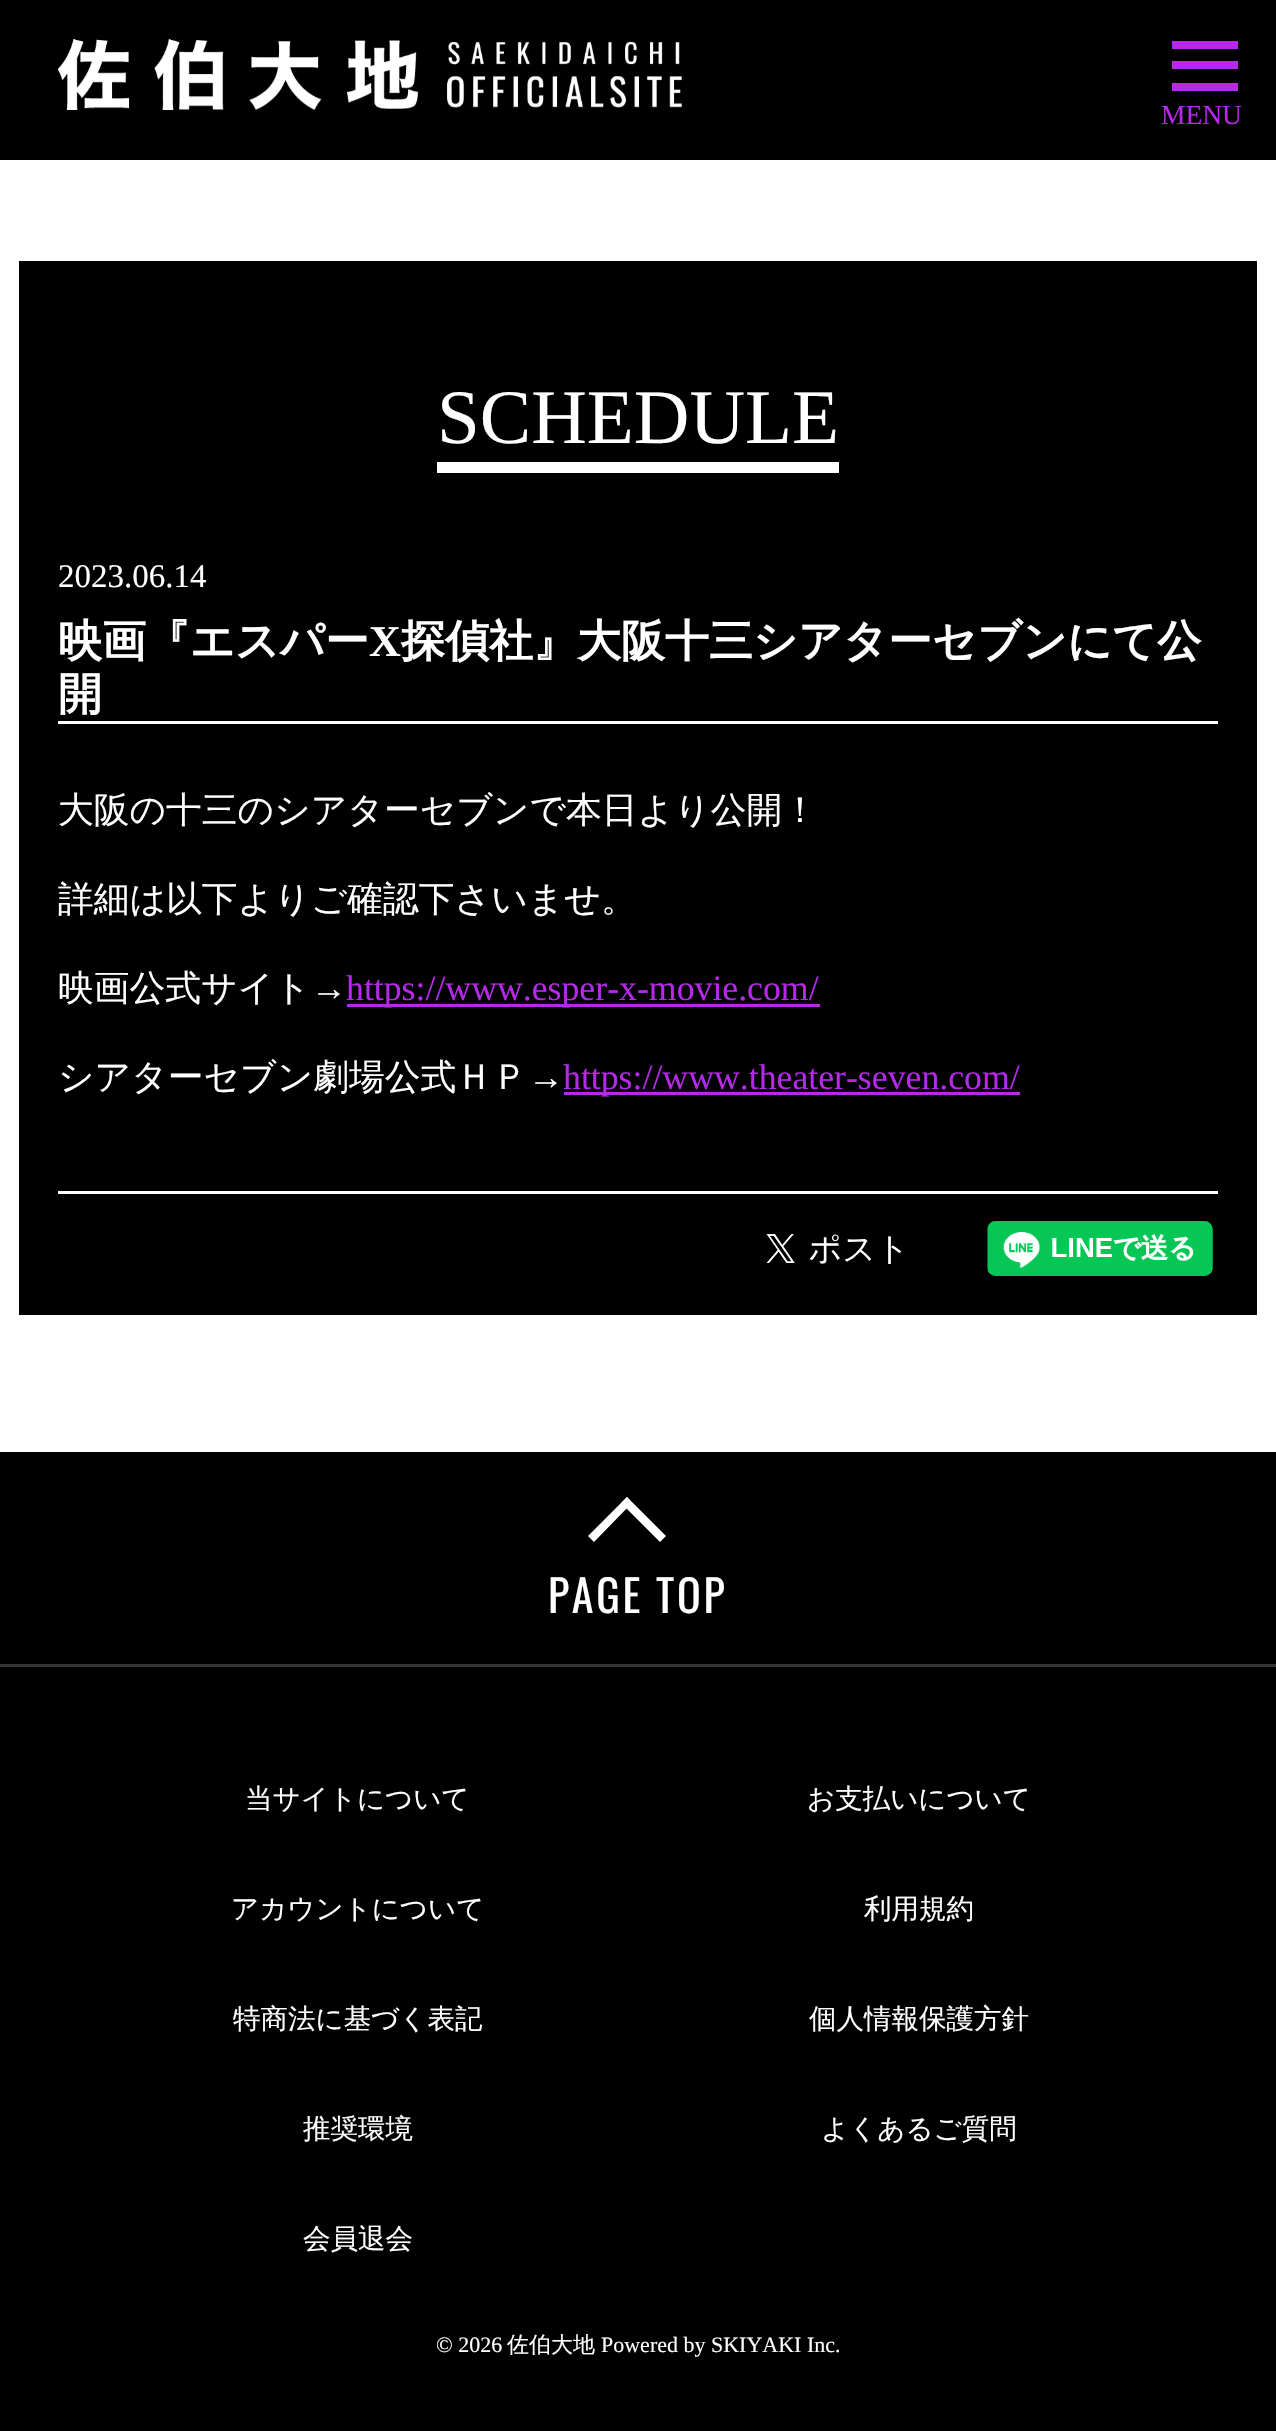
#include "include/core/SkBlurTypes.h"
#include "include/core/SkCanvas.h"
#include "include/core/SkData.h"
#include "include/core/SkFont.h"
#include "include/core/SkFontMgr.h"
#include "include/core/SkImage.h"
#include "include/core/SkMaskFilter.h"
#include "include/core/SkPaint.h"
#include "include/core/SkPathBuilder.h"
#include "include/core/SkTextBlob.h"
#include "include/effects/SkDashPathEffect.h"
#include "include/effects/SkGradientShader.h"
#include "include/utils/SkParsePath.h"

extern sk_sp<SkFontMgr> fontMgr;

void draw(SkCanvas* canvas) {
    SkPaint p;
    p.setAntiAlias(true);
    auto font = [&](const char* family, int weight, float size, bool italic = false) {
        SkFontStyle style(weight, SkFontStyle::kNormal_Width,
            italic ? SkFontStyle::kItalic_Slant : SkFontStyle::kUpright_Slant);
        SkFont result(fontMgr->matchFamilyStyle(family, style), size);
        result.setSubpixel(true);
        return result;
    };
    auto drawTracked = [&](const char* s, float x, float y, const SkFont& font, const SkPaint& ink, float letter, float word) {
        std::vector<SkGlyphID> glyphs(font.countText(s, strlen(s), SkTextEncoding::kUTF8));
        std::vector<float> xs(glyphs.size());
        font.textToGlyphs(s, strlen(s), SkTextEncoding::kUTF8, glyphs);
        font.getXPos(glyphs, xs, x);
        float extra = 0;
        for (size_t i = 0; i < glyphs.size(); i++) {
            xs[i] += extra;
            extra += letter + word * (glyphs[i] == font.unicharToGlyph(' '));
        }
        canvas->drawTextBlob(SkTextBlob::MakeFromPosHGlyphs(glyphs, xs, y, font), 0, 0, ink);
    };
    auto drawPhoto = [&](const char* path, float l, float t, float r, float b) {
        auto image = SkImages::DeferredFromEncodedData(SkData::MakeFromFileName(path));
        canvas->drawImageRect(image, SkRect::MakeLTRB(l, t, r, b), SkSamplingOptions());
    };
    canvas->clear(0xFFFFFFFF);
    p.setColor(0xFF000000);
    canvas->drawRect(SkRect::MakeLTRB(0, 0, 1276, 160), p);
    drawPhoto("media/1.png", 58, 39, 682, 110);
    {
        const struct { float l, t, r, b; SkColor color; } items[] = {
            {1172, 41, 1238, 49, 0xFFB629EB},
            {1172, 61, 1238, 69, 0xFFB629EB},
            {1172, 83, 1238, 91, 0xFFB629EB},
        };
        for (auto [l, t, r, b, color] : items) {
            p.setColor(color);
            canvas->drawRect(SkRect::MakeLTRB(l, t, r, b), p);
        }
    }
    auto font1 = font("Liberation Serif", 400, 27.5f);
    canvas->drawString("MENU", 1161, 124, font1, p);
    p.setColor(0xFF000000);
    canvas->drawRect(SkRect::MakeLTRB(19, 261, 1257, 1315), p);
    p.setColor(0xFFFFFFFF);
    canvas->drawRect(SkRect::MakeLTRB(437, 462, 839, 473), p);
    auto font2 = font("Liberation Serif", 400, 77);
    canvas->drawString("SCHEDULE", 437, 443, font2, p);
    canvas->drawRect(SkRect::MakeLTRB(58, 721, 1218, 724), p);
    auto font3 = font("Liberation Serif", 400, 33);
    canvas->drawString("2023.06.14", 58, 587, font3, p);
    auto font4 = font("WenQuanYi Zen Hei", 700, 44);
    canvas->drawString("映画『エスパー", 58, 656, font4, p);
    auto font5 = font("Liberation Serif", 700, 44);
    canvas->drawString("X", 369, 656, font5, p);
    canvas->drawString("探偵社』大阪十三シアターセブンにて公", 401, 656, font4, p);
    canvas->drawString("開", 58, 709, font4, p);
    auto font6 = font("WenQuanYi Zen Hei", 500, 35.75f);
    {
        const struct { const char* s; float x, y; } items[] = {
            {"大阪の十三のシアターセブンで本日より公開！", 58, 822},
            {"詳細は以下よりご確認下さいませ。", 58, 911},
            {"映画公式サイト", 58, 1000},
        };
        for (auto [s, x, y] : items) {
            canvas->drawString(s, x, y, font6, p);
        }
    }
    auto font7 = font("Liberation Serif", 400, 35.75f);
    canvas->drawString("→", 311, 1000, font7, p);
    p.setColor(0xFFB629EB);
    canvas->drawRect(SkRect::MakeLTRB(347, 1004, 820, 1007), p);
    canvas->drawString("https://www.esper-x-movie.com/", 346, 1000, font7, p);
    p.setColor(0xFFFFFFFF);
    canvas->drawString("シアターセブン劇場公式ＨＰ", 58, 1089, font6, p);
    canvas->drawString("→", 528, 1089, font7, p);
    p.setColor(0xFFB629EB);
    canvas->drawRect(SkRect::MakeLTRB(564, 1092, 1020, 1095), p);
    canvas->drawString("https://www.theater-seven.com/", 563, 1089, font7, p);
    p.setColor(0xFFFFFFFF);
    canvas->drawRect(SkRect::MakeLTRB(58, 1191, 1218, 1194), p);
    drawPhoto("media/2.png", 766, 1234, 902, 1264);
    drawPhoto("media/3.png", 987, 1221, 1213, 1276);
    p.setColor(0xFF000000);
    canvas->drawRect(SkRect::MakeLTRB(0, 1452, 1276, 2431), p);
    p.setColor(0xFFFFFFFF);
    canvas->drawPath(SkPathBuilder().moveTo(588, 1536).lineTo(627, 1497).lineTo(632, 1503).lineTo(594, 1542).close().detach(), p);
    canvas->drawPath(SkPathBuilder().moveTo(621, 1503).lineTo(627, 1497).lineTo(666, 1536).lineTo(660, 1542).close().detach(), p);
    auto font8 = font("Oswald", 400, 44);
    drawTracked("PAGE TOP", 548, 1613, font8, p, 2.75f, 0);
    p.setColor(0xFF333333);
    canvas->drawRect(SkRect::MakeLTRB(0, 1664, 1276, 1667), p);
    auto font9 = font("WenQuanYi Zen Hei", 500, 27.5f);
    p.setColor(0xFFFFFFFF);
    {
        const struct { const char* s; float x, y; } items[] = {
            {"当サイトについて", 245, 1808},
            {"お支払いについて", 807, 1808},
            {"アカウントについて", 231, 1918},
            {"利用規約", 864, 1918},
            {"特商法に基づく表記", 233, 2028},
            {"個人情報保護方針", 809, 2028},
            {"推奨環境", 303, 2138},
            {"よくあるご質問", 821, 2138},
            {"会員退会", 303, 2248},
        };
        for (auto [s, x, y] : items) {
            canvas->drawString(s, x, y, font9, p);
        }
    }
    auto font10 = font("Liberation Serif", 400, 22);
    canvas->drawString("© 2026", 436, 2352, font10, p);
    auto font11 = font("WenQuanYi Zen Hei", 500, 22);
    canvas->drawString("佐伯大地", 507, 2352, font11, p);
    canvas->drawString("Powered by SKIYAKI Inc.", 601, 2352, font10, p);
}
